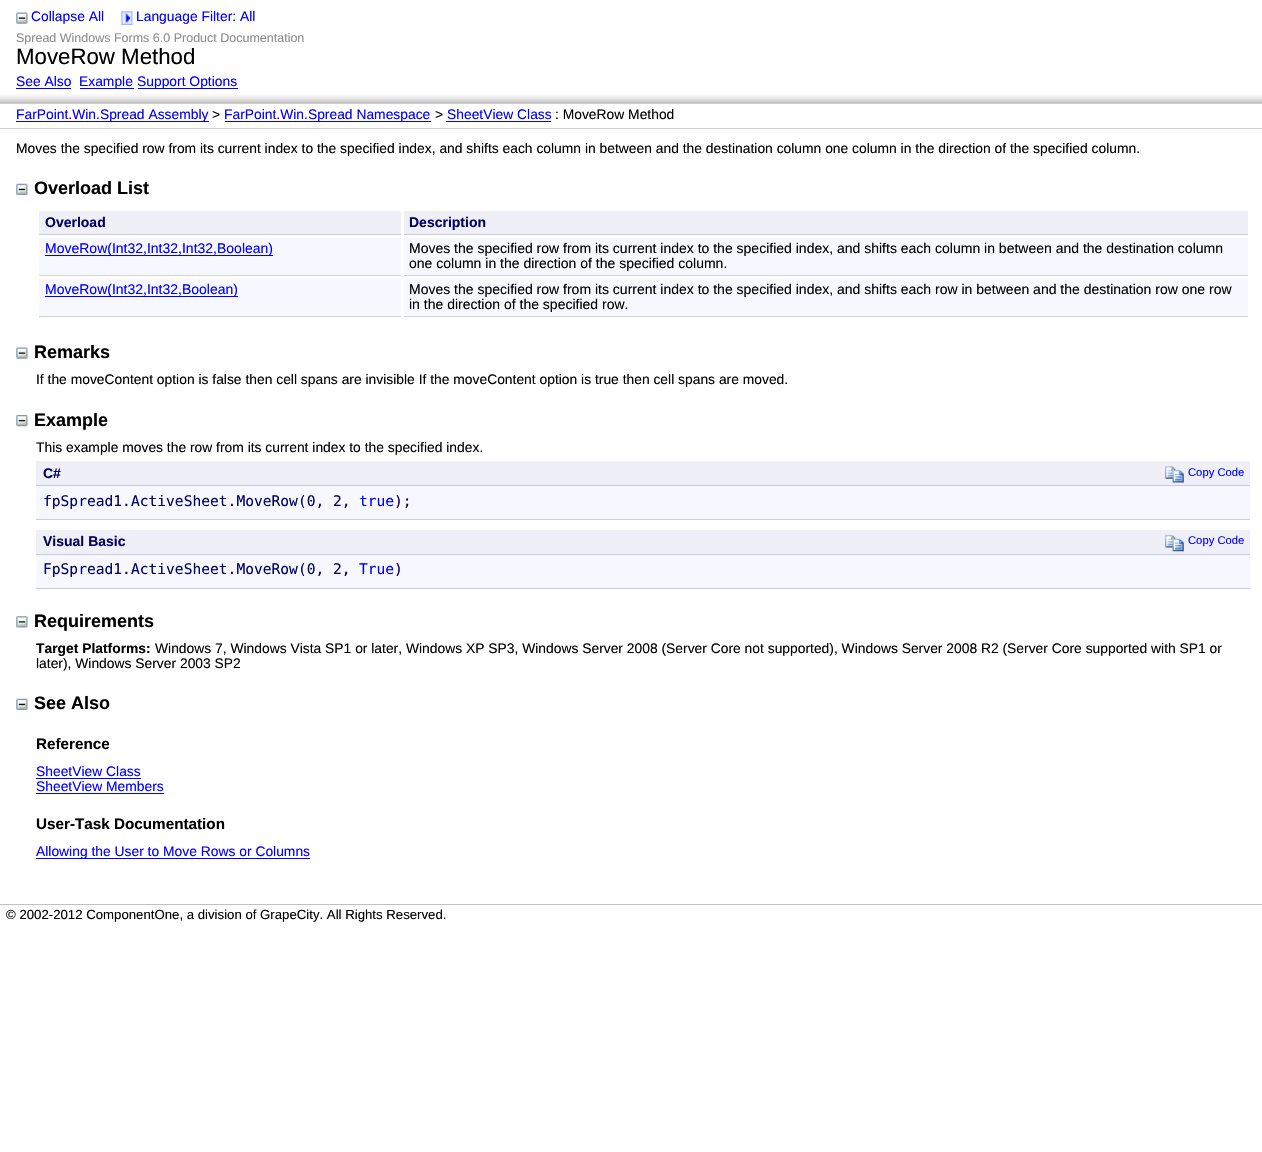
#include "include/core/SkBlurTypes.h"
#include "include/core/SkCanvas.h"
#include "include/core/SkData.h"
#include "include/core/SkFont.h"
#include "include/core/SkFontMgr.h"
#include "include/core/SkImage.h"
#include "include/core/SkMaskFilter.h"
#include "include/core/SkPaint.h"
#include "include/core/SkPathBuilder.h"
#include "include/core/SkTextBlob.h"
#include "include/effects/SkDashPathEffect.h"
#include "include/effects/SkGradientShader.h"
#include "include/utils/SkParsePath.h"

extern sk_sp<SkFontMgr> fontMgr;

void draw(SkCanvas* canvas) {
    SkPaint p;
    p.setAntiAlias(true);
    auto font = [&](const char* family, int weight, float size, bool italic = false) {
        SkFontStyle style(weight, SkFontStyle::kNormal_Width,
            italic ? SkFontStyle::kItalic_Slant : SkFontStyle::kUpright_Slant);
        SkFont result(fontMgr->matchFamilyStyle(family, style), size);
        result.setSubpixel(true);
        return result;
    };
    auto drawPhoto = [&](const char* path, float l, float t, float r, float b) {
        auto image = SkImages::DeferredFromEncodedData(SkData::MakeFromFileName(path));
        canvas->drawImageRect(image, SkRect::MakeLTRB(l, t, r, b), SkSamplingOptions());
    };
    canvas->clear(0xFFFFFFFF);
    drawPhoto("media/1.png", 16, 12, 28, 24);
    auto font1 = font("Liberation Sans", 400, 13.85f);
    p.setColor(0xFF0000FF);
    canvas->drawString("Collapse All", 31, 21, font1, p);
    drawPhoto("media/2.png", 121, 11, 133, 25);
    canvas->drawString("Language Filter: All", 136, 21, font1, p);
    auto font2 = font("Liberation Sans", 400, 12.5f);
    p.setColor(0xFF8C8C8C);
    canvas->drawString("Spread Windows Forms 6.0 Product Documentation", 16, 42, font2, p);
    auto font3 = font("Liberation Sans", 400, 22.25f);
    p.setColor(0xFF000000);
    canvas->drawString("MoveRow Method", 16, 64, font3, p);
    drawPhoto("media/3.png", 0, 94, 1262, 104);
    p.setColor(0xFF0000FF);
    canvas->drawString("See Also", 16, 86, font1, p);
    canvas->drawRect(SkRect::MakeLTRB(16, 88, 71, 89), p);
    canvas->drawRect(SkRect::MakeLTRB(80, 88, 134, 89), p);
    canvas->drawString("Example", 79, 86, font1, p);
    canvas->drawRect(SkRect::MakeLTRB(138, 88, 238, 89), p);
    canvas->drawString("Support Options", 137, 86, font1, p);
    p.setColor(0xFFD0D0D0);
    canvas->drawRect(SkRect::MakeLTRB(0, 128, 1262, 129), p);
    p.setColor(0xFF0000FF);
    canvas->drawRect(SkRect::MakeLTRB(16, 121, 209, 122), p);
    canvas->drawString("FarPoint.Win.Spread Assembly", 16, 119, font1, p);
    p.setColor(0xFF000000);
    canvas->drawString(">", 212, 119, font1, p);
    p.setColor(0xFF0000FF);
    canvas->drawRect(SkRect::MakeLTRB(225, 121, 431, 122), p);
    canvas->drawString("FarPoint.Win.Spread Namespace", 224, 119, font1, p);
    p.setColor(0xFF000000);
    canvas->drawString(">", 435, 119, font1, p);
    p.setColor(0xFF0000FF);
    canvas->drawString("SheetView Class", 447, 119, font1, p);
    canvas->drawRect(SkRect::MakeLTRB(446, 121, 551, 122), p);
    p.setColor(0xFF000000);
    canvas->drawString(": MoveRow Method", 555, 119, font1, p);
    canvas->drawString("Moves the specified row from its current index to the specified index, and shifts each column in between and the destination column one column in the direction of the specified column.", 16, 153, font1, p);
    drawPhoto("media/4.png", 16, 183, 28, 195);
    auto font4 = font("Liberation Sans", 700, 18);
    canvas->drawString("Overload List", 34, 194, font4, p);
    p.setColor(0xFFEFEFF7);
    canvas->drawRect(SkRect::MakeLTRB(39, 211, 401, 234), p);
    p.setColor(0xFFC8CDDE);
    canvas->drawRect(SkRect::MakeLTRB(39, 234, 401, 235), p);
    auto font5 = font("Liberation Sans", 700, 14);
    p.setColor(0xFF000066);
    canvas->drawString("Overload", 45, 227, font5, p);
    p.setColor(0xFFEFEFF7);
    canvas->drawRect(SkRect::MakeLTRB(404, 211, 1248, 234), p);
    p.setColor(0xFFC8CDDE);
    canvas->drawRect(SkRect::MakeLTRB(404, 234, 1248, 235), p);
    p.setColor(0xFF000066);
    canvas->drawString("Description", 409, 227, font5, p);
    {
        const struct { float l, t, r, b; SkColor color; } items[] = {
            {39, 238, 401, 275, 0xFFF7F7FF},
            {39, 275, 401, 276, 0xFFD5D5D3},
            {45, 255, 273, 256, 0xFF0000FF},
        };
        for (auto [l, t, r, b, color] : items) {
            p.setColor(color);
            canvas->drawRect(SkRect::MakeLTRB(l, t, r, b), p);
        }
    }
    auto font6 = font("Liberation Sans", 400, 14);
    canvas->drawString("MoveRow(Int32,Int32,Int32,Boolean)", 45, 253, font6, p);
    p.setColor(0xFFF7F7FF);
    canvas->drawRect(SkRect::MakeLTRB(404, 238, 1248, 275), p);
    p.setColor(0xFFD5D5D3);
    canvas->drawRect(SkRect::MakeLTRB(404, 275, 1248, 276), p);
    p.setColor(0xFF000000);
    canvas->drawString("Moves the specified row from its current index to the specified index, and shifts each column in between and the destination column", 409, 253, font6, p);
    canvas->drawString("one column in the direction of the specified column.", 409, 268, font6, p);
    {
        const struct { float l, t, r, b; SkColor color; } items[] = {
            {39, 279, 401, 318, 0xFFF7F7FF},
            {39, 316, 401, 317, 0xFFD5D5D3},
            {45, 296, 238, 297, 0xFF0000FF},
        };
        for (auto [l, t, r, b, color] : items) {
            p.setColor(color);
            canvas->drawRect(SkRect::MakeLTRB(l, t, r, b), p);
        }
    }
    canvas->drawString("MoveRow(Int32,Int32,Boolean)", 45, 294, font6, p);
    p.setColor(0xFFF7F7FF);
    canvas->drawRect(SkRect::MakeLTRB(404, 279, 1248, 318), p);
    p.setColor(0xFFD5D5D3);
    canvas->drawRect(SkRect::MakeLTRB(404, 316, 1248, 317), p);
    p.setColor(0xFF000000);
    canvas->drawString("Moves the specified row from its current index to the specified index, and shifts each row in between and the destination row one row", 409, 294, font6, p);
    canvas->drawString("in the direction of the specified row.", 409, 309, font6, p);
    drawPhoto("media/1.png", 16, 347, 28, 359);
    canvas->drawString("Remarks", 34, 358, font4, p);
    canvas->drawString("If the moveContent option is false then cell spans are invisible If the moveContent option is true then cell spans are moved.", 36, 384, font1, p);
    drawPhoto("media/5.png", 16, 415, 28, 427);
    canvas->drawString("Example", 34, 426, font4, p);
    canvas->drawString("This example moves the row from its current index to the specified index.", 36, 452, font1, p);
    p.setColor(0xFFEFEFF7);
    canvas->drawRect(SkRect::MakeLTRB(36, 461, 1250, 485), p);
    p.setColor(0xFFC8CDDE);
    canvas->drawRect(SkRect::MakeLTRB(36, 485, 1250, 486), p);
    p.setColor(0xFF000066);
    canvas->drawString("C#", 43, 478, font5, p);
    drawPhoto("media/6.png", 1165, 466, 1184, 483);
    auto font7 = font("Liberation Sans", 400, 11.25f);
    p.setColor(0xFF0000FF);
    canvas->drawString("Copy Code", 1188, 476, font7, p);
    p.setColor(0xFFF7F7FF);
    canvas->drawRect(SkRect::MakeLTRB(36, 486, 1250, 519), p);
    p.setColor(0xFFC8CDDE);
    canvas->drawRect(SkRect::MakeLTRB(36, 519, 1250, 520), p);
    auto font8 = font("DejaVu Sans Mono", 400, 14.6f);
    p.setColor(0xFF000066);
    canvas->drawString("fpSpread1.ActiveSheet.MoveRow(0, 2,", 43, 506, font8, p);
    p.setColor(0xFF0000FF);
    canvas->drawString("true", 359, 506, font8, p);
    p.setColor(0xFF000066);
    canvas->drawString(");", 394, 506, font8, p);
    p.setColor(0xFFEFEFF7);
    canvas->drawRect(SkRect::MakeLTRB(36, 530, 1250, 554), p);
    p.setColor(0xFFC8CDDE);
    canvas->drawRect(SkRect::MakeLTRB(36, 554, 1250, 555), p);
    p.setColor(0xFF000066);
    canvas->drawString("Visual Basic", 43, 546, font5, p);
    drawPhoto("media/7.png", 1165, 534, 1184, 552);
    p.setColor(0xFF0000FF);
    canvas->drawString("Copy Code", 1188, 544, font7, p);
    p.setColor(0xFFF7F7FF);
    canvas->drawRect(SkRect::MakeLTRB(36, 555, 1250, 588), p);
    p.setColor(0xFFC8CDDE);
    canvas->drawRect(SkRect::MakeLTRB(36, 588, 1250, 589), p);
    p.setColor(0xFF000066);
    canvas->drawString("FpSpread1.ActiveSheet.MoveRow(0, 2,", 43, 574, font8, p);
    p.setColor(0xFF0000FF);
    canvas->drawString("True", 359, 574, font8, p);
    p.setColor(0xFF000066);
    canvas->drawString(")", 394, 574, font8, p);
    drawPhoto("media/8.png", 16, 616, 28, 628);
    p.setColor(0xFF000000);
    canvas->drawString("Requirements", 34, 627, font4, p);
    auto font9 = font("Liberation Sans", 700, 13.85f);
    canvas->drawString("Target Platforms:", 36, 653, font9, p);
    canvas->drawString("Windows 7, Windows Vista SP1 or later, Windows XP SP3, Windows Server 2008 (Server Core not supported), Windows Server 2008 R2 (Server Core supported with SP1 or", 155, 653, font1, p);
    canvas->drawString("later), Windows Server 2003 SP2", 36, 668, font1, p);
    drawPhoto("media/4.png", 16, 698, 28, 710);
    canvas->drawString("See Also", 34, 709, font4, p);
    auto font10 = font("Liberation Sans", 700, 15.25f);
    canvas->drawString("Reference", 36, 749, font10, p);
    p.setColor(0xFF0000FF);
    canvas->drawString("SheetView Class", 36, 776, font1, p);
    canvas->drawRect(SkRect::MakeLTRB(36, 778, 141, 779), p);
    canvas->drawString("SheetView Members", 36, 791, font1, p);
    canvas->drawRect(SkRect::MakeLTRB(36, 793, 164, 794), p);
    p.setColor(0xFF000000);
    canvas->drawString("User-Task Documentation", 36, 829, font10, p);
    p.setColor(0xFF0000FF);
    canvas->drawRect(SkRect::MakeLTRB(36, 858, 310, 859), p);
    canvas->drawString("Allowing the User to Move Rows or Columns", 36, 856, font1, p);
    p.setColor(0xFFC0C0C0);
    canvas->drawRect(SkRect::MakeLTRB(0, 904, 1262, 905), p);
    auto font11 = font("Liberation Sans", 400, 13.2f);
    p.setColor(0xFF000000);
    canvas->drawString("© 2002-2012 ComponentOne, a division of GrapeCity. All Rights Reserved.", 6, 919, font11, p);
}
